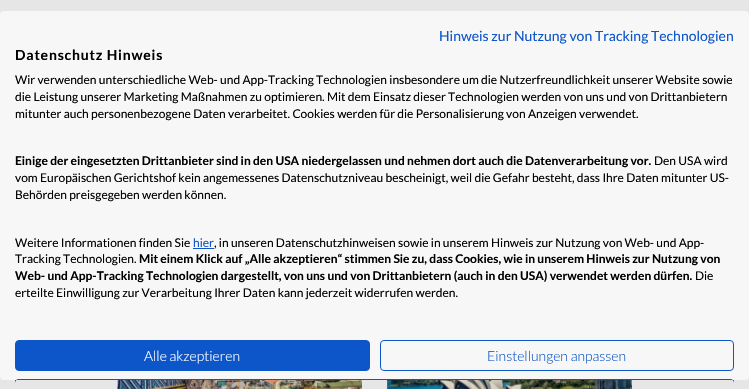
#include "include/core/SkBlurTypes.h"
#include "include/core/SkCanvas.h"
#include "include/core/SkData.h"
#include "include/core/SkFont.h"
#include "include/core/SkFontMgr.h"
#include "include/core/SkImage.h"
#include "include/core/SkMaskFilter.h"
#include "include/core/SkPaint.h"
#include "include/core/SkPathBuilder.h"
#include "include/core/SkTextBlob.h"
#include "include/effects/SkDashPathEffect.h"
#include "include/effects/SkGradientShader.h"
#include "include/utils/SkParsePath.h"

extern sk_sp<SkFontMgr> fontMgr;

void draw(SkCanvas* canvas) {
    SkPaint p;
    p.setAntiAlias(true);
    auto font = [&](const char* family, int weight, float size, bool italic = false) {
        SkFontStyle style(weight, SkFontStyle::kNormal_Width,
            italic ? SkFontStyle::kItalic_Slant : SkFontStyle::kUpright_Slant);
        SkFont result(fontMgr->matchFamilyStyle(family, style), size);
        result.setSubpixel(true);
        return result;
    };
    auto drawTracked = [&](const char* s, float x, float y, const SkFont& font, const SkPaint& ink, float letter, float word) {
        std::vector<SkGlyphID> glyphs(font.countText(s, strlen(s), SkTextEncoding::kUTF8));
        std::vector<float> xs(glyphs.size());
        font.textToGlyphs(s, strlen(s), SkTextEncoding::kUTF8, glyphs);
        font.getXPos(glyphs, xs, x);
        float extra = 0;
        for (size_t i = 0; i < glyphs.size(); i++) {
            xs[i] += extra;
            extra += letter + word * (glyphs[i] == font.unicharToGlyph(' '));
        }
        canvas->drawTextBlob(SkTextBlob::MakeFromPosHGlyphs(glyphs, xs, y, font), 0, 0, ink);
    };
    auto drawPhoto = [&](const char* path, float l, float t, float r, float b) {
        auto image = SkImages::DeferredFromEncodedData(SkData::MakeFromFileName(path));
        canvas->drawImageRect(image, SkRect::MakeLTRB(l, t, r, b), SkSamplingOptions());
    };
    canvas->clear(0xFFE6E6E6);
    p.setColor(0xFFF7F7F7);
    canvas->drawRoundRect(SkRect::MakeLTRB(0, 11, 749, 380), 4, 4, p);
    auto font1 = font("Lato", 400, 14);
    p.setColor(0xFF0D56C9);
    canvas->drawString("Hinweis zur Nutzung von Tracking Technologien", 439, 41, font1, p);
    auto font2 = font("Lato", 700, 14);
    p.setColor(0xFF000000);
    drawTracked("Datenschutz Hinweis", 15, 60, font2, p, 0.8f, 0);
    auto font3 = font("Lato", 400, 12);
    {
        const struct { const char* s; float x, y; } items[] = {
            {"Wir verwenden unterschiedliche Web- und App-Tracking Technologien insbesondere um die Nutzerfreundlichkeit unserer Website sowie", 15, 84},
            {"die Leistung unserer Marketing Maßnahmen zu optimieren. Mit dem Einsatz dieser Technologien werden von uns und von Drittanbietern", 15, 101},
            {"mitunter auch personenbezogene Daten verarbeitet. Cookies werden für die Personalisierung von Anzeigen verwendet.", 15, 118},
        };
        for (auto [s, x, y] : items) {
            canvas->drawString(s, x, y, font3, p);
        }
    }
    auto font4 = font("Lato", 700, 12);
    canvas->drawString("Einige der eingesetzten Drittanbieter sind in den USA niedergelassen und nehmen dort auch die Datenverarbeitung vor.", 15, 165, font4, p);
    {
        const struct { const char* s; float x, y; } items[] = {
            {"Den USA wird", 654, 165},
            {"vom Europäischen Gerichtshof kein angemessenes Datenschutzniveau bescheinigt, weil die Gefahr besteht, dass Ihre Daten mitunter US-", 15, 182},
            {"Behörden preisgegeben werden können.", 15, 199},
            {"Weitere Informationen finden Sie", 15, 247},
        };
        for (auto [s, x, y] : items) {
            canvas->drawString(s, x, y, font3, p);
        }
    }
    p.setColor(0xFF0D56C9);
    canvas->drawString("hier", 193, 247, font3, p);
    canvas->drawRect(SkRect::MakeLTRB(193, 248, 214, 249), p);
    p.setColor(0xFF000000);
    canvas->drawString(", in unseren Datenschutzhinweisen sowie in unserem Hinweis zur Nutzung von Web- und App-", 214, 247, font3, p);
    canvas->drawString("Tracking Technologien.", 15, 263, font3, p);
    canvas->drawString("Mit einem Klick auf „Alle akzeptieren“ stimmen Sie zu, dass Cookies, wie in unserem Hinweis zur Nutzung von", 139, 263, font4, p);
    canvas->drawString("Web- und App-Tracking Technologien dargestellt, von uns und von Drittanbietern (auch in den USA) verwendet werden dürfen.", 15, 280, font4, p);
    canvas->drawString("Die", 695, 280, font3, p);
    canvas->drawString("erteilte Einwilligung zur Verarbeitung Ihrer Daten kann jederzeit widerrufen werden.", 15, 297, font3, p);
    p.setColor(0xFF0D56C9);
    canvas->drawRoundRect(SkRect::MakeLTRB(15.5f, 340.5f, 369.5f, 370.5f), 3.5f, 3.5f, p);
    p.setStyle(SkPaint::kStroke_Style);
    p.setStrokeWidth(1);
    canvas->drawRoundRect(SkRect::MakeLTRB(15.5f, 340.5f, 369.5f, 370.5f), 3.5f, 3.5f, p);
    auto font5 = font("Lato", 300, 14);
    p.setStyle(SkPaint::kFill_Style);
    p.setColor(0xFFFFFFFF);
    canvas->drawString("Alle akzeptieren", 144, 361, font5, p);
    p.setStyle(SkPaint::kStroke_Style);
    p.setColor(0xFF0D56C9);
    canvas->drawRoundRect(SkRect::MakeLTRB(380.5f, 340.5f, 733.5f, 370.5f), 3.5f, 3.5f, p);
    p.setStyle(SkPaint::kFill_Style);
    canvas->drawString("Einstellungen anpassen", 487, 361, font5, p);
    canvas->drawPath(SkPathBuilder().moveTo(19, 379).lineTo(730, 379).cubicTo(732, 379, 734, 381, 734, 383).lineTo(734, 380).lineTo(15, 380).lineTo(15, 383).cubicTo(15, 381, 17, 379, 19, 379).close().detach(), p);
    canvas->drawPath(SkPathBuilder().moveTo(19, 379).lineTo(16, 380).lineTo(733, 380).lineTo(730, 379).close().detach(), p);
    drawPhoto("media/1.png", 117, 380, 362, 389);
    drawPhoto("media/2.png", 387, 380, 632, 389);
}
